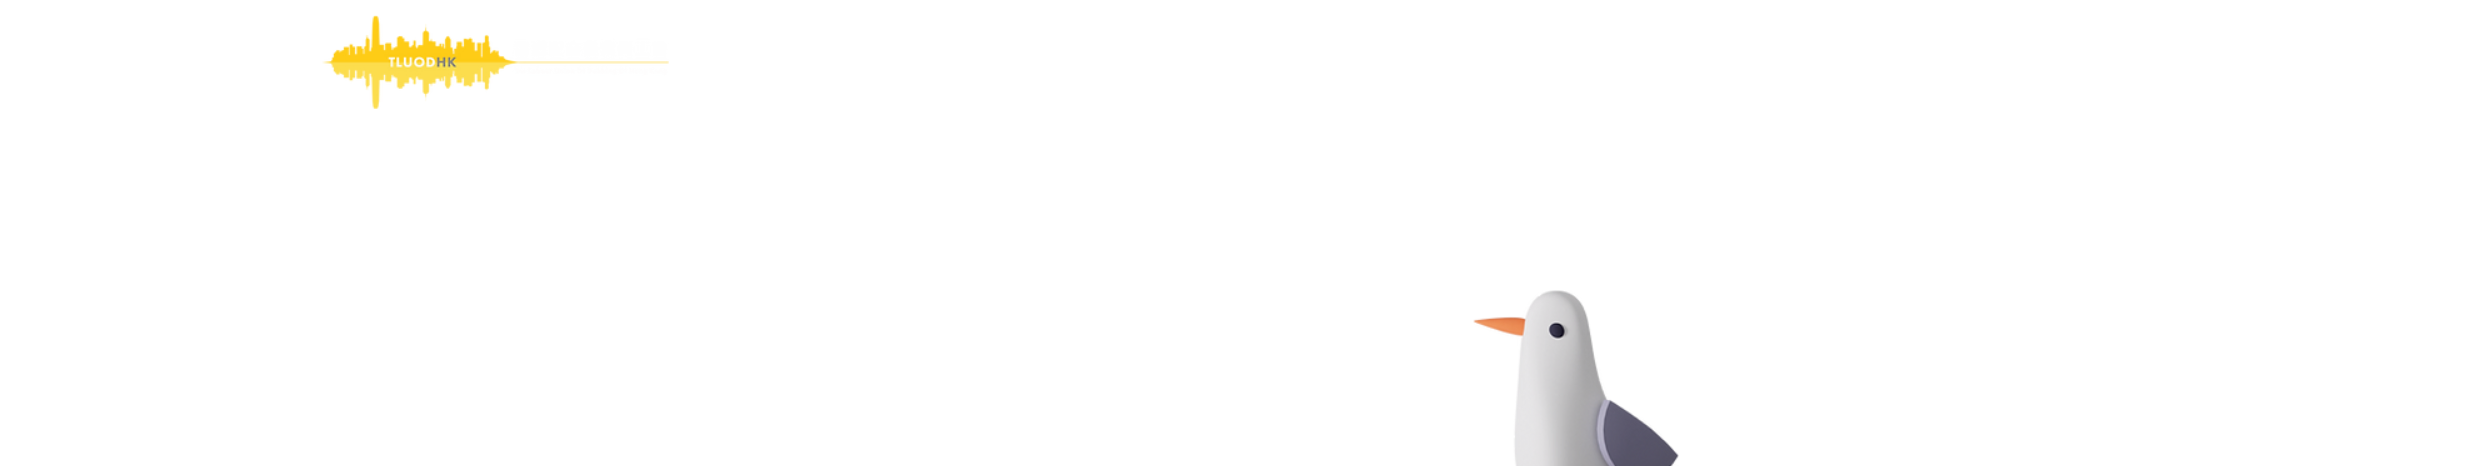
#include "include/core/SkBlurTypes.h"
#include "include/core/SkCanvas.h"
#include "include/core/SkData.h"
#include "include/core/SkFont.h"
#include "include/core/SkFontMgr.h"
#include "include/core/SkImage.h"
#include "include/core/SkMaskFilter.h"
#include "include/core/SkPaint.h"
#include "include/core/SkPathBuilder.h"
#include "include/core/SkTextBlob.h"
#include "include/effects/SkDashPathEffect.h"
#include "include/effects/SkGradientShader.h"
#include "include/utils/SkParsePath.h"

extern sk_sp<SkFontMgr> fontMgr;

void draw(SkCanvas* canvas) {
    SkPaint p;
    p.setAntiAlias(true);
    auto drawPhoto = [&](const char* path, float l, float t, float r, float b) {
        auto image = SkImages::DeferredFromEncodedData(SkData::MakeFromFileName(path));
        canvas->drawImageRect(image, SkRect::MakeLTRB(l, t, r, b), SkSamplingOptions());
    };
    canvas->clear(0xFFFFFFFF);
    drawPhoto("media/1.png", 322, 15, 669, 109);
    drawPhoto("media/2.png", 1473, 290, 1679, 466);
}
